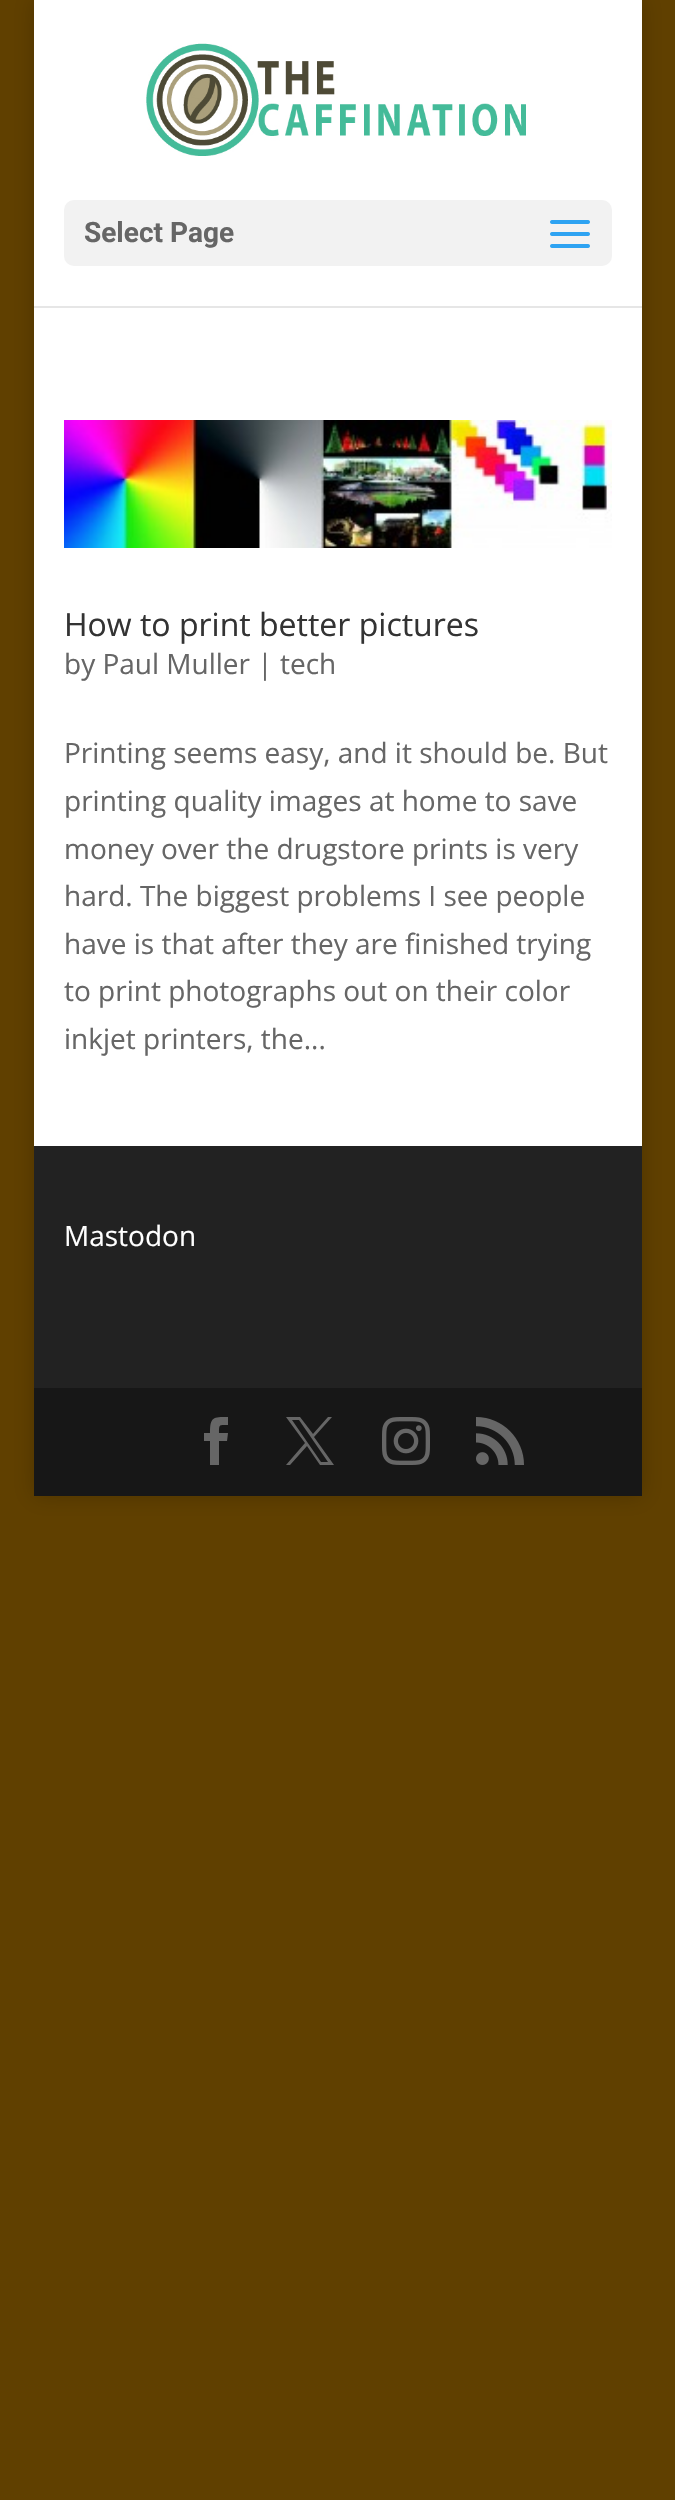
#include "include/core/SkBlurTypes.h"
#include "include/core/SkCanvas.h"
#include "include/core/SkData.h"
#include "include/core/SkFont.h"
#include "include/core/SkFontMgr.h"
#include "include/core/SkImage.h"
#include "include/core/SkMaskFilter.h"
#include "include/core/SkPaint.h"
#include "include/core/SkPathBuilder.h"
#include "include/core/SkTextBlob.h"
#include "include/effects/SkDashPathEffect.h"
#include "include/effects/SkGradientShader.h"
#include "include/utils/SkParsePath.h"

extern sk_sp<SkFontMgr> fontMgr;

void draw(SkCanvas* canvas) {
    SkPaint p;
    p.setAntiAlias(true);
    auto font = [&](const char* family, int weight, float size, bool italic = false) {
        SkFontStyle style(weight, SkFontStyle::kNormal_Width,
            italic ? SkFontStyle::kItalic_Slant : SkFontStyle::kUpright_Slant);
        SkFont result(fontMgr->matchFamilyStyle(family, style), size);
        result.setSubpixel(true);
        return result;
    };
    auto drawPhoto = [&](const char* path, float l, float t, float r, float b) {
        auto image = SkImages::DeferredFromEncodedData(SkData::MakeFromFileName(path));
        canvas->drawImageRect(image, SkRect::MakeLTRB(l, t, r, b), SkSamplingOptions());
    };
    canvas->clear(0xFF604000);
    p.setColor(0x33000000);
    p.setMaskFilter(SkMaskFilter::MakeBlur(kNormal_SkBlurStyle, 10));
    canvas->drawRect(SkRect::MakeLTRB(34, 0, 642, 1496), p);
    p.setMaskFilter(nullptr);
    p.setColor(0xFFE6E6E6);
    canvas->drawRect(SkRect::MakeLTRB(34, 306, 642, 308), p);
    p.setColor(0xFFFFFFFF);
    canvas->drawRect(SkRect::MakeLTRB(34, 0, 642, 306), p);
    drawPhoto("media/1.png", 146, 43, 526, 156);
    p.setColor(0xFFF2F2F2);
    canvas->drawRoundRect(SkRect::MakeLTRB(64, 200, 612, 266), 10, 10, p);
    auto font1 = font("Roboto", 700, 28);
    p.setColor(0xFF666666);
    canvas->drawString("Select Page", 84, 242, font1, p);
    drawPhoto("media/2.png", 550, 220, 590, 248);
    p.setColor(0xFFFFFFFF);
    canvas->drawRect(SkRect::MakeLTRB(34, 308, 642, 1146), p);
    drawPhoto("media/3.png", 64, 420, 612, 548);
    auto font2 = font("Open Sans", 400, 32);
    p.setColor(0xFF333333);
    canvas->drawString("How to print better pictures", 64, 636, font2, p);
    auto font3 = font("Open Sans", 400, 28);
    p.setColor(0xFF666666);
    {
        const struct { const char* s; float x, y; } items[] = {
            {"by Paul Muller | tech", 64, 674},
            {"Printing seems easy, and it should be. But", 64, 763},
            {"printing quality images at home to save", 64, 811},
            {"money over the drugstore prints is very", 64, 859},
            {"hard. The biggest problems I see people", 64, 906},
            {"have is that after they are finished trying", 64, 954},
            {"to print photographs out on their color", 64, 1001},
            {"inkjet printers, the...", 64, 1049},
        };
        for (auto [s, x, y] : items) {
            canvas->drawString(s, x, y, font3, p);
        }
    }
    p.setColor(0xFF222222);
    canvas->drawRect(SkRect::MakeLTRB(34, 1146, 642, 1388), p);
    p.setColor(0xFFFFFFFF);
    canvas->drawString("Mastodon", 64, 1246, font3, p);
    p.setColor(0xFF171717);
    canvas->drawRect(SkRect::MakeLTRB(34, 1388, 642, 1496), p);
    p.setColor(0xFF666666);
    canvas->drawPath(SkPathBuilder().moveTo(210, 1465).lineTo(219, 1465).lineTo(219, 1441).lineTo(227, 1441).lineTo(228, 1433).lineTo(219, 1433).cubicTo(219, 1424, 219, 1425, 228, 1425).lineTo(228, 1417).cubicTo(213, 1417, 210, 1417, 210, 1433).lineTo(204, 1433).lineTo(204, 1441).lineTo(210, 1441).close().detach(), p);
    canvas->drawPath(SkPathBuilder().moveTo(286, 1417).lineTo(305, 1443).lineTo(286, 1465).lineTo(290, 1465).lineTo(307, 1446).lineTo(320, 1465).lineTo(334, 1465).lineTo(314, 1437).lineTo(332, 1417).lineTo(328, 1417).lineTo(313, 1434).lineTo(300, 1417).close().moveTo(292, 1420).lineTo(299, 1420).lineTo(328, 1462).lineTo(321, 1462).close().detach(), p);
    drawPhoto("media/4.png", 382, 1417, 430, 1465);
    drawPhoto("media/5.png", 476, 1417, 524, 1465);
}
